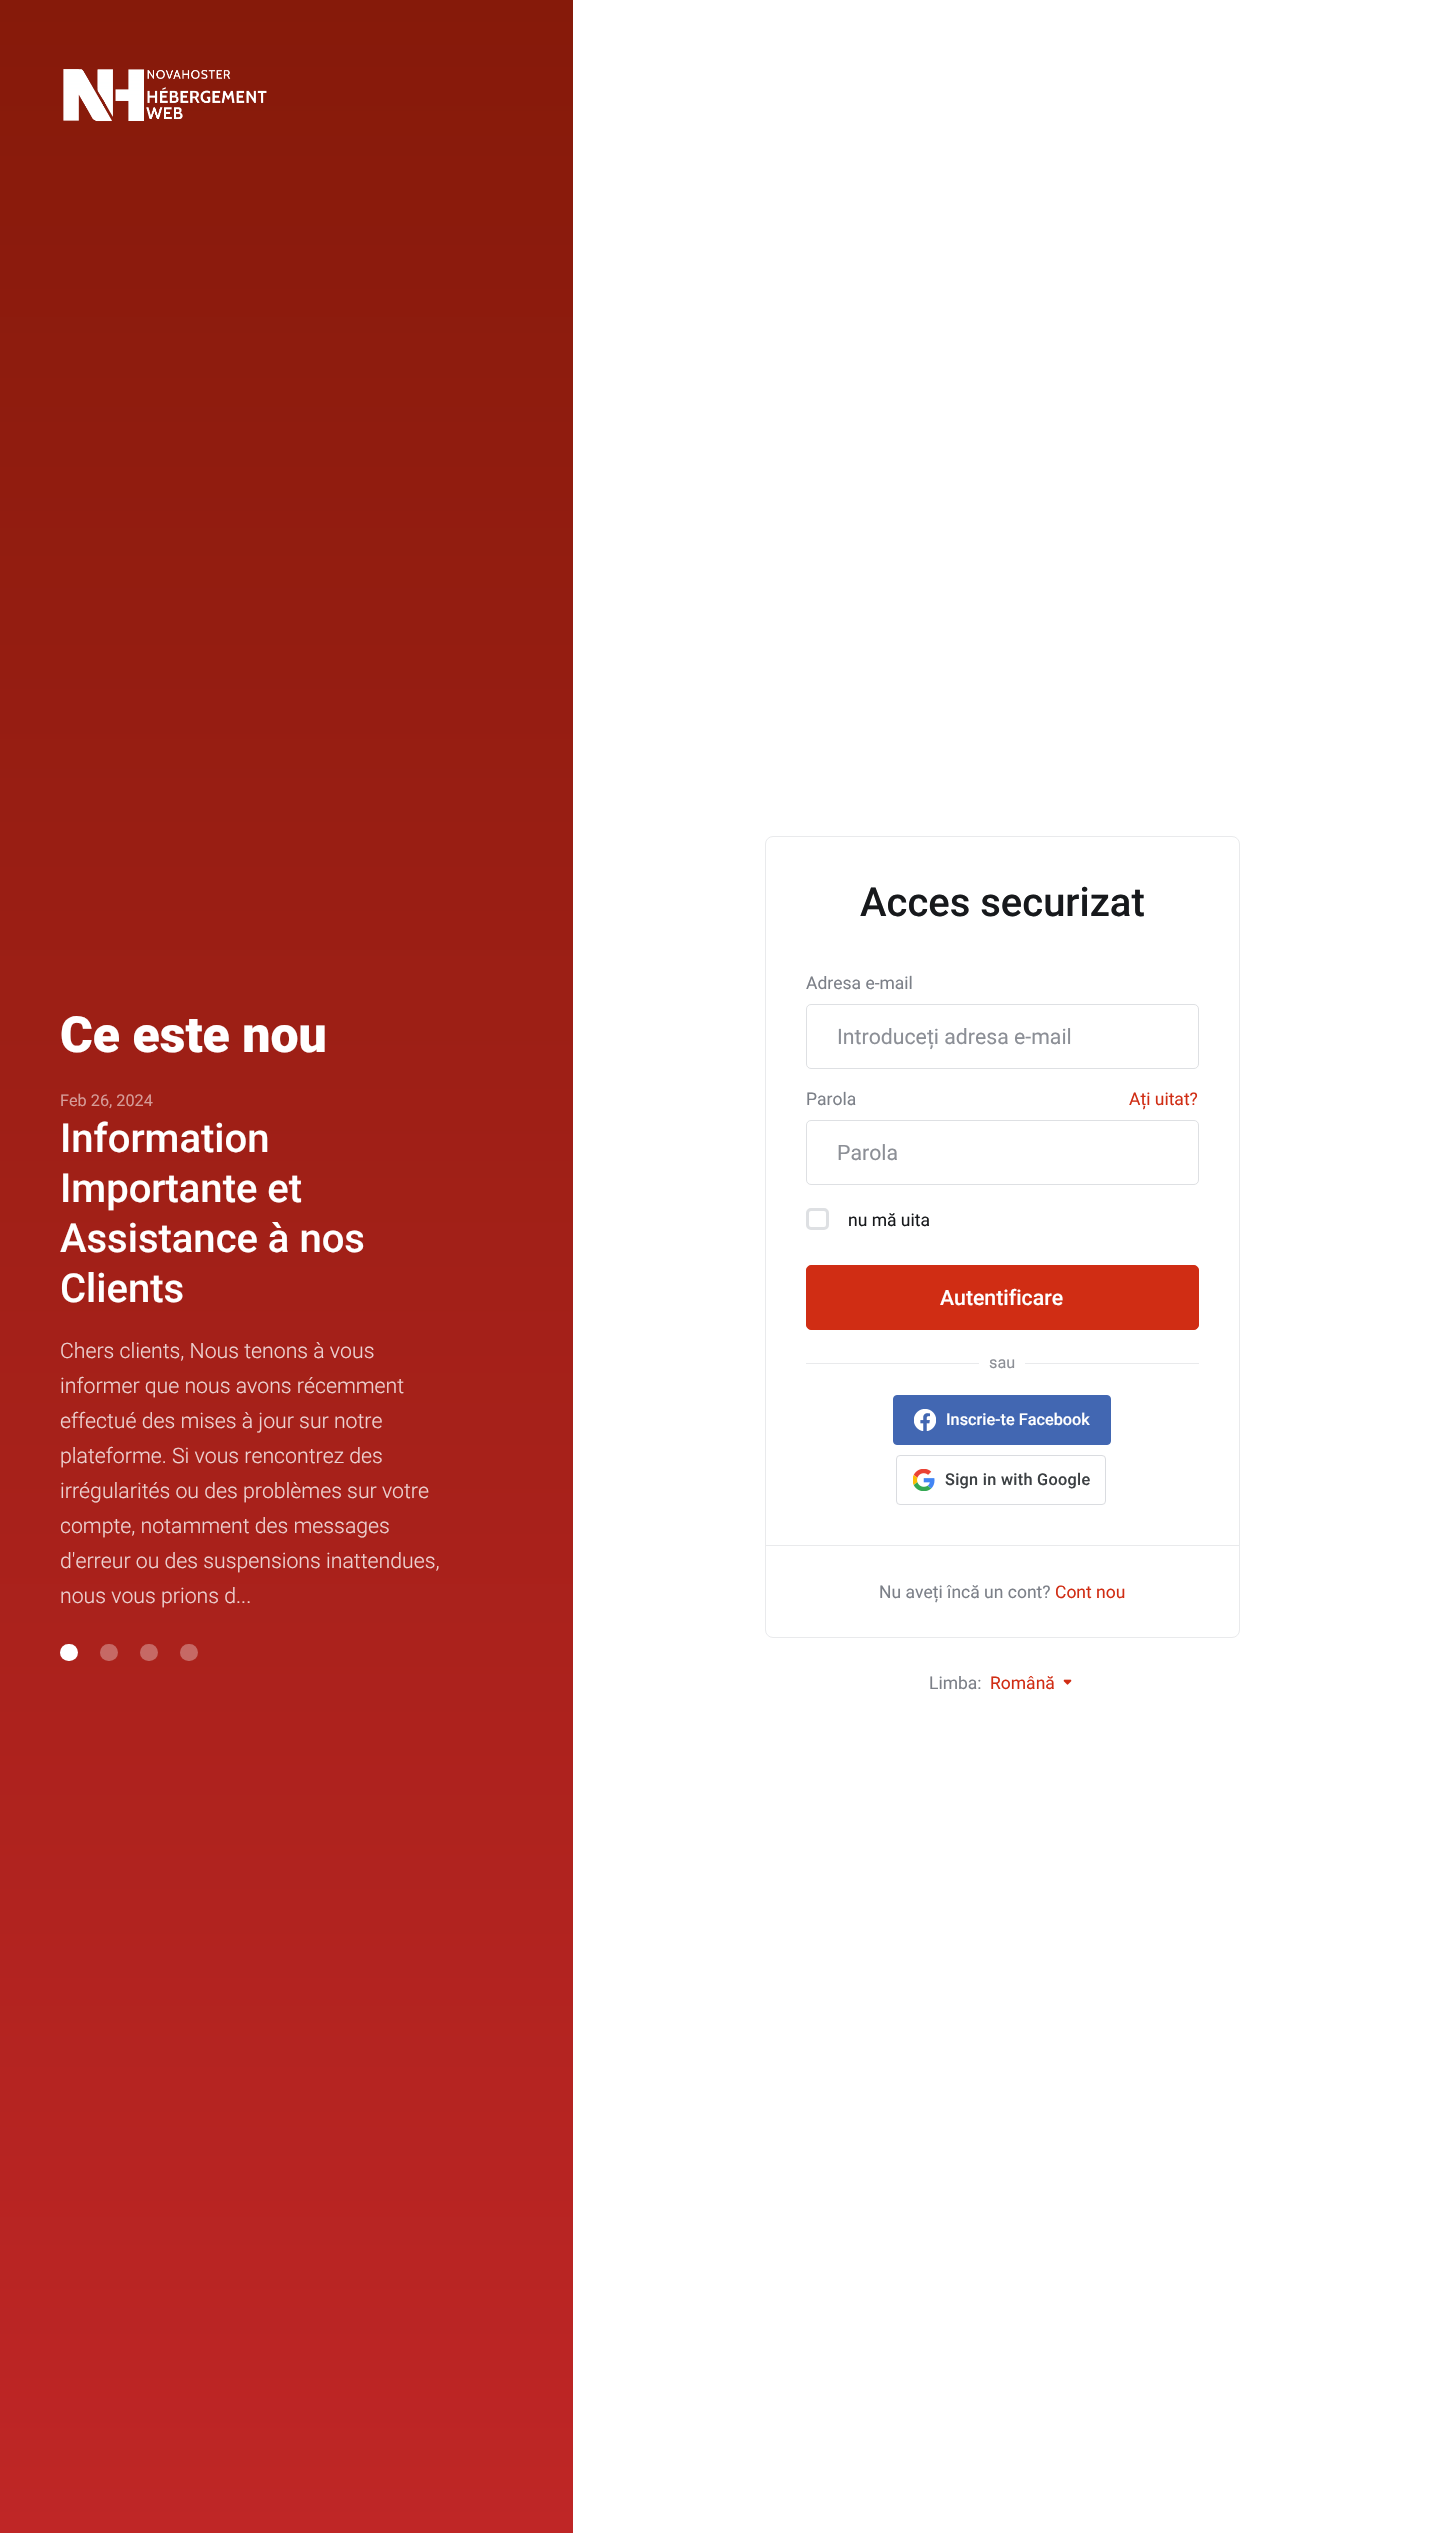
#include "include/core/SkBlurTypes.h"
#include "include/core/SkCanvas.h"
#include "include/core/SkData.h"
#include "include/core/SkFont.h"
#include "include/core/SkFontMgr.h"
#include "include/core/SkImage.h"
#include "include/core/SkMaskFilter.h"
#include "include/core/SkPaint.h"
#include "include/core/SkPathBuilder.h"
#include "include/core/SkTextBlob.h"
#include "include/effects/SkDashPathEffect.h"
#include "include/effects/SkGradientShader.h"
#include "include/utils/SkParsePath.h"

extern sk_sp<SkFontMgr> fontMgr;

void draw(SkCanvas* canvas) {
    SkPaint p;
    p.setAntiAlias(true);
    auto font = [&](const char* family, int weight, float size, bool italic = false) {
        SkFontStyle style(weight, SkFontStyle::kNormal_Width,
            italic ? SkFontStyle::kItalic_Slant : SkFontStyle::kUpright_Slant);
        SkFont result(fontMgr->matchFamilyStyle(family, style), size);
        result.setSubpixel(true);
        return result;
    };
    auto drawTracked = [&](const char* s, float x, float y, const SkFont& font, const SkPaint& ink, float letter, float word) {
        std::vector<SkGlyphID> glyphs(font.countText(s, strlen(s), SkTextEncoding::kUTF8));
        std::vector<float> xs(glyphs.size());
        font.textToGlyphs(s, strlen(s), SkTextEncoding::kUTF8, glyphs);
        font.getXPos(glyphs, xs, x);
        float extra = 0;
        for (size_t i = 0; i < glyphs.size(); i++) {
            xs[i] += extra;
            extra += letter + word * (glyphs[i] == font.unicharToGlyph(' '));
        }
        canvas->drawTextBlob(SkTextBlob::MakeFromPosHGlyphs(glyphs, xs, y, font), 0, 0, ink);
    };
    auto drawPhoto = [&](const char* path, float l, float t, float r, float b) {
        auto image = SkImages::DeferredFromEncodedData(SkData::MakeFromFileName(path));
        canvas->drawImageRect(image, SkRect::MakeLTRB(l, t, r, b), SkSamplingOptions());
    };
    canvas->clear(0xFFFFFFFF);
    {
        const SkColor colors[] = {0xFFBF2626, 0xFF861A0A};
        const float stops[] = {0, 1};
        const SkPoint ends[] = {{286, 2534}, {286, 0}};
        p.setShader(SkGradientShader::MakeLinear(ends, colors, stops, 2, SkTileMode::kClamp));
        p.setAlpha(255);
    }
    canvas->drawRect(SkRect::MakeLTRB(0, 0, 573, 2533), p);
    drawPhoto("media/1.png", 63, 69, 267, 122);
    auto font1 = font("Roboto", 900, 50);
    p.setShader(nullptr);
    p.setColor(0xFFFFFFFF);
    canvas->drawString("Ce este nou", 60, 1052, font1, p);
    auto font2 = font("Roboto", 400, 16.25f);
    p.setColor(0xFFD59C98);
    canvas->drawString("Feb 26, 2024", 60, 1106, font2, p);
    auto font3 = font("Roboto", 500, 40);
    p.setColor(0xFFFFFFFF);
    {
        const struct { const char* s; float x, y; } items[] = {
            {"Information", 60, 1152},
            {"Importante et", 60, 1202},
            {"Assistance à nos", 60, 1252},
            {"Clients", 60, 1302},
        };
        for (auto [s, x, y] : items) {
            canvas->drawString(s, x, y, font3, p);
        }
    }
    auto font4 = font("Roboto", 300, 21.25f);
    p.setColor(0xFFEDD2D1);
    {
        const struct { const char* s; float x, y; } items[] = {
            {"Chers clients, Nous tenons à vous", 60, 1358},
            {"informer que nous avons récemment", 60, 1393},
            {"effectué des mises à jour sur notre", 60, 1428},
            {"plateforme. Si vous rencontrez des", 60, 1463},
            {"irrégularités ou des problèmes sur votre", 60, 1498},
            {"compte, notamment des messages", 60, 1533},
            {"d'erreur ou des suspensions inattendues,", 60, 1568},
            {"nous vous prions d...", 60, 1603},
        };
        for (auto [s, x, y] : items) {
            canvas->drawString(s, x, y, font4, p);
        }
    }
    p.setColor(0xFFFFFFFF);
    canvas->drawRoundRect(SkRect::MakeLTRB(60, 1644, 78, 1661), 8.5f, 8.5f, p);
    p.setColor(0xFFC66965);
    canvas->drawRoundRect(SkRect::MakeLTRB(100, 1644, 118, 1661), 8.5f, 8.5f, p);
    canvas->drawRoundRect(SkRect::MakeLTRB(140, 1644, 158, 1661), 8.5f, 8.5f, p);
    canvas->drawRoundRect(SkRect::MakeLTRB(180, 1644, 198, 1661), 8.5f, 8.5f, p);
    p.setStyle(SkPaint::kStroke_Style);
    p.setStrokeWidth(1);
    p.setColor(0xFFE9EAEC);
    canvas->drawRoundRect(SkRect::MakeLTRB(765.5f, 836.5f, 1239.5f, 1637.5f), 7.5f, 7.5f, p);
    p.setStyle(SkPaint::kFill_Style);
    p.setColor(0xFF17191C);
    canvas->drawString("Acces securizat", 860, 916, font3, p);
    auto font5 = font("Roboto", 400, 17.5f);
    p.setColor(0xFF7C8088);
    canvas->drawString("Adresa e-mail", 806, 989, font5, p);
    p.setStyle(SkPaint::kStroke_Style);
    p.setColor(0xFFDEE0E3);
    canvas->drawRoundRect(SkRect::MakeLTRB(806.5f, 1004.5f, 1198.5f, 1068.5f), 4.5f, 4.5f, p);
    auto font6 = font("Roboto", 400, 21.25f);
    p.setStyle(SkPaint::kFill_Style);
    p.setColor(0xFF8C8F96);
    canvas->drawString("Introduceți adresa e-mail", 837, 1044, font6, p);
    p.setColor(0xFF7C8088);
    canvas->drawString("Parola", 806, 1105, font5, p);
    p.setColor(0xFFD02D14);
    canvas->drawString("Ați uitat?", 1129, 1105, font5, p);
    p.setStyle(SkPaint::kStroke_Style);
    p.setColor(0xFFDEE0E3);
    canvas->drawRoundRect(SkRect::MakeLTRB(806.5f, 1120.5f, 1198.5f, 1184.5f), 4.5f, 4.5f, p);
    p.setStyle(SkPaint::kFill_Style);
    p.setColor(0xFF8C8F96);
    canvas->drawString("Parola", 837, 1160, font6, p);
    p.setStyle(SkPaint::kStroke_Style);
    p.setStrokeWidth(3);
    p.setColor(0xFFDEE0E3);
    canvas->drawRoundRect(SkRect::MakeLTRB(807.5f, 1209.5f, 827.5f, 1228.5f), 3.5f, 3.5f, p);
    p.setStyle(SkPaint::kFill_Style);
    p.setColor(0xFF17191C);
    canvas->drawString("nu mă uita", 848, 1226, font5, p);
    p.setColor(0xFFD02D14);
    canvas->drawRoundRect(SkRect::MakeLTRB(806.5f, 1265.5f, 1198.5f, 1329.5f), 4.5f, 4.5f, p);
    p.setStyle(SkPaint::kStroke_Style);
    p.setStrokeWidth(1);
    canvas->drawRoundRect(SkRect::MakeLTRB(806.5f, 1265.5f, 1198.5f, 1329.5f), 4.5f, 4.5f, p);
    auto font7 = font("Roboto", 500, 21.25f);
    p.setStyle(SkPaint::kFill_Style);
    p.setColor(0xFFFFFFFF);
    canvas->drawString("Autentificare", 940, 1305, font7, p);
    p.setColor(0xFFE9EAEC);
    canvas->drawRect(SkRect::MakeLTRB(806, 1363, 979, 1364), p);
    p.setColor(0xFF8C8F96);
    canvas->drawString("sau", 989, 1368, font2, p);
    p.setColor(0xFFE9EAEC);
    canvas->drawRect(SkRect::MakeLTRB(1025, 1363, 1199, 1364), p);
    p.setColor(0xFF4267B2);
    canvas->drawRoundRect(SkRect::MakeLTRB(893.5f, 1395.5f, 1110.5f, 1444.5f), 3.5f, 3.5f, p);
    p.setStyle(SkPaint::kStroke_Style);
    canvas->drawRoundRect(SkRect::MakeLTRB(893.5f, 1395.5f, 1110.5f, 1444.5f), 3.5f, 3.5f, p);
    drawPhoto("media/2.png", 914, 1409, 936, 1431);
    auto font8 = font("Roboto", 500, 16.25f);
    p.setStyle(SkPaint::kFill_Style);
    p.setColor(0xFFFFFFFF);
    canvas->drawString("Inscrie-te Facebook", 946, 1425, font8, p);
    p.setStyle(SkPaint::kStroke_Style);
    p.setColor(0xFFDADCE0);
    canvas->drawRoundRect(SkRect::MakeLTRB(896.5f, 1455.5f, 1105.5f, 1504.5f), 3.5f, 3.5f, p);
    drawPhoto("media/3.png", 913, 1469, 935, 1491);
    p.setStyle(SkPaint::kFill_Style);
    p.setColor(0xFF3C4043);
    drawTracked("Sign in with Google", 945, 1485, font8, p, 0.3f, 0);
    p.setColor(0xFFE9EAEC);
    canvas->drawRect(SkRect::MakeLTRB(766, 1545, 1239, 1546), p);
    p.setColor(0xFF7C8088);
    canvas->drawString("Nu aveți încă un cont?", 879, 1598, font5, p);
    p.setColor(0xFFD02D14);
    canvas->drawString("Cont nou", 1055, 1598, font5, p);
    p.setColor(0xFF7C8088);
    canvas->drawString("Limba:", 929, 1689, font5, p);
    p.setColor(0xFFD02D14);
    canvas->drawString("Română", 990, 1689, font5, p);
    drawPhoto("media/4.png", 1063, 1679, 1072, 1685);
}
